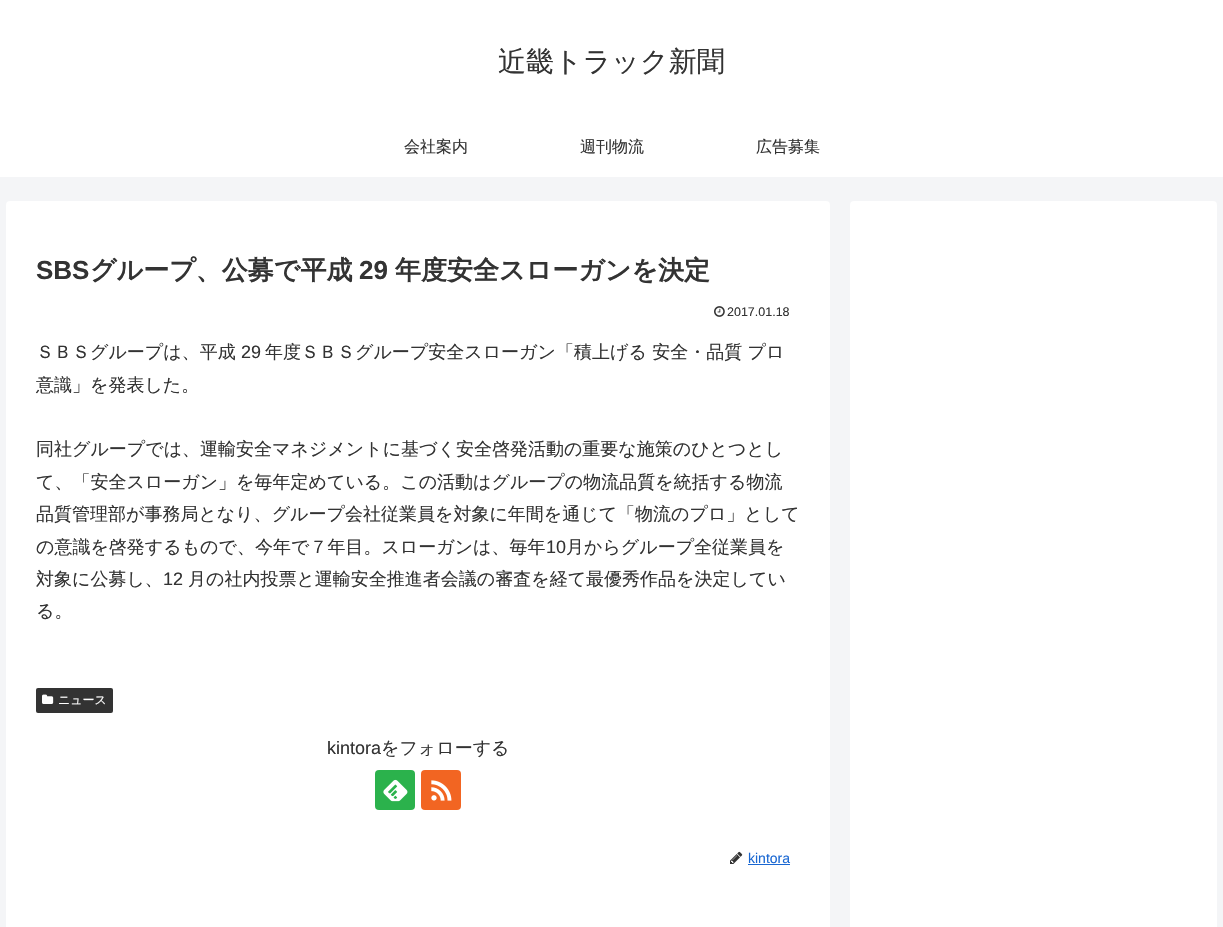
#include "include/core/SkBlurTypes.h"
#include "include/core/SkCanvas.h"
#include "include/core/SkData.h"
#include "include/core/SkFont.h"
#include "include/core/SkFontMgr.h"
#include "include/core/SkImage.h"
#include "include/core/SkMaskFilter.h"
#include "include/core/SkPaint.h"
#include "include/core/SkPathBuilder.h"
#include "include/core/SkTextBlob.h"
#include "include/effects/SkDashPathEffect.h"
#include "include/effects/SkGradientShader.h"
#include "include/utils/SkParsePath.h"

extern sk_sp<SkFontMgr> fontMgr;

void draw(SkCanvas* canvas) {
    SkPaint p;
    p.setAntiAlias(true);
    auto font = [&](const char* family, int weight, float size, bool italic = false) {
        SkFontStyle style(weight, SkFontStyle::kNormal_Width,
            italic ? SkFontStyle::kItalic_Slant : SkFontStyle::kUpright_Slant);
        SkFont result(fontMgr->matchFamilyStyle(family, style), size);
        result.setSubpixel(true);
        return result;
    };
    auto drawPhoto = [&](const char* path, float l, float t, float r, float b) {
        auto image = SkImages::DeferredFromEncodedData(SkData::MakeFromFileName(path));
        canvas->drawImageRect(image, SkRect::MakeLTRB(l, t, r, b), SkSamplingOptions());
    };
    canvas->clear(0xFFF4F5F7);
    p.setColor(0xFFFFFFFF);
    canvas->drawRect(SkRect::MakeLTRB(0, 0, 1223, 177), p);
    auto font1 = font("WenQuanYi Zen Hei", 500, 28);
    p.setColor(0xFF333333);
    canvas->drawString("近畿トラック新聞", 498, 71, font1, p);
    auto font2 = font("WenQuanYi Zen Hei", 500, 16);
    {
        const struct { const char* s; float x, y; } items[] = {
            {"会社案内", 404, 152},
            {"週刊物流", 580, 152},
            {"広告募集", 756, 152},
        };
        for (auto [s, x, y] : items) {
            canvas->drawString(s, x, y, font2, p);
        }
    }
    p.setColor(0xFFFFFFFF);
    canvas->drawRoundRect(SkRect::MakeLTRB(6, 201, 830, 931), 4, 4, p);
    auto font3 = font("Liberation Sans", 700, 26);
    p.setColor(0xFF333333);
    canvas->drawString("SBS", 36, 279, font3, p);
    auto font4 = font("WenQuanYi Zen Hei", 700, 26);
    canvas->drawString("グループ、公募で平成", 90, 279, font4, p);
    canvas->drawString("29", 359, 279, font3, p);
    canvas->drawString("年度安全スローガンを決定", 395, 279, font4, p);
    drawPhoto("media/1.png", 714, 306, 725, 317);
    auto font5 = font("Liberation Sans", 400, 12.5f);
    canvas->drawString("2017.01.18", 727, 316, font5, p);
    auto font6 = font("WenQuanYi Zen Hei", 500, 18);
    canvas->drawString("ＳＢＳグループは、平成", 36, 358, font6, p);
    auto font7 = font("Liberation Sans", 400, 18);
    canvas->drawString("29", 241, 358, font7, p);
    {
        const struct { const char* s; float x, y; } items[] = {
            {"年度ＳＢＳグループ安全スローガン「積上げる 安全・品質 プロ", 265, 358},
            {"意識」を発表した。", 36, 391},
            {"同社グループでは、運輸安全マネジメントに基づく安全啓発活動の重要な施策のひとつとし", 36, 455},
            {"て、「安全スローガン」を毎年定めている。この活動はグループの物流品質を統括する物流", 36, 488},
            {"品質管理部が事務局となり、グループ会社従業員を対象に年間を通じて「物流のプロ」として", 36, 520},
            {"の意識を啓発するもので、今年で７年目。スローガンは、毎年", 36, 553},
        };
        for (auto [s, x, y] : items) {
            canvas->drawString(s, x, y, font6, p);
        }
    }
    canvas->drawString("10", 546, 553, font7, p);
    canvas->drawString("月からグループ全従業員を", 566, 553, font6, p);
    canvas->drawString("対象に公募し、", 36, 585, font6, p);
    canvas->drawString("12", 163, 585, font7, p);
    canvas->drawString("月の社内投票と運輸安全推進者会議の審査を経て最優秀作品を決定してい", 188, 585, font6, p);
    canvas->drawString("る。", 36, 617, font6, p);
    canvas->drawRoundRect(SkRect::MakeLTRB(36, 688, 113, 713), 2, 2, p);
    drawPhoto("media/2.png", 42, 694, 54, 704);
    auto font8 = font("WenQuanYi Zen Hei", 500, 12);
    p.setColor(0xFFFFFFFF);
    canvas->drawString("ニュース", 58, 704, font8, p);
    p.setColor(0xFF333333);
    canvas->drawString("kintora", 327, 754, font7, p);
    canvas->drawString("をフォローする", 381, 754, font6, p);
    p.setColor(0xFF2BB24C);
    canvas->drawRoundRect(SkRect::MakeLTRB(375, 770, 415, 810), 4, 4, p);
    drawPhoto("media/3.png", 383, 779, 408, 802);
    p.setColor(0xFFF26522);
    canvas->drawRoundRect(SkRect::MakeLTRB(421, 770, 461, 810), 4, 4, p);
    drawPhoto("media/4.png", 431, 780, 452, 801);
    drawPhoto("media/5.png", 730, 851, 743, 864);
    auto font9 = font("Liberation Sans", 400, 14);
    p.setColor(0xFF1967D2);
    canvas->drawString("kintora", 748, 863, font9, p);
    canvas->drawRect(SkRect::MakeLTRB(748, 864, 790, 865), p);
    p.setColor(0xFFFFFFFF);
    canvas->drawRoundRect(SkRect::MakeLTRB(850, 201, 1217, 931), 4, 4, p);
}
